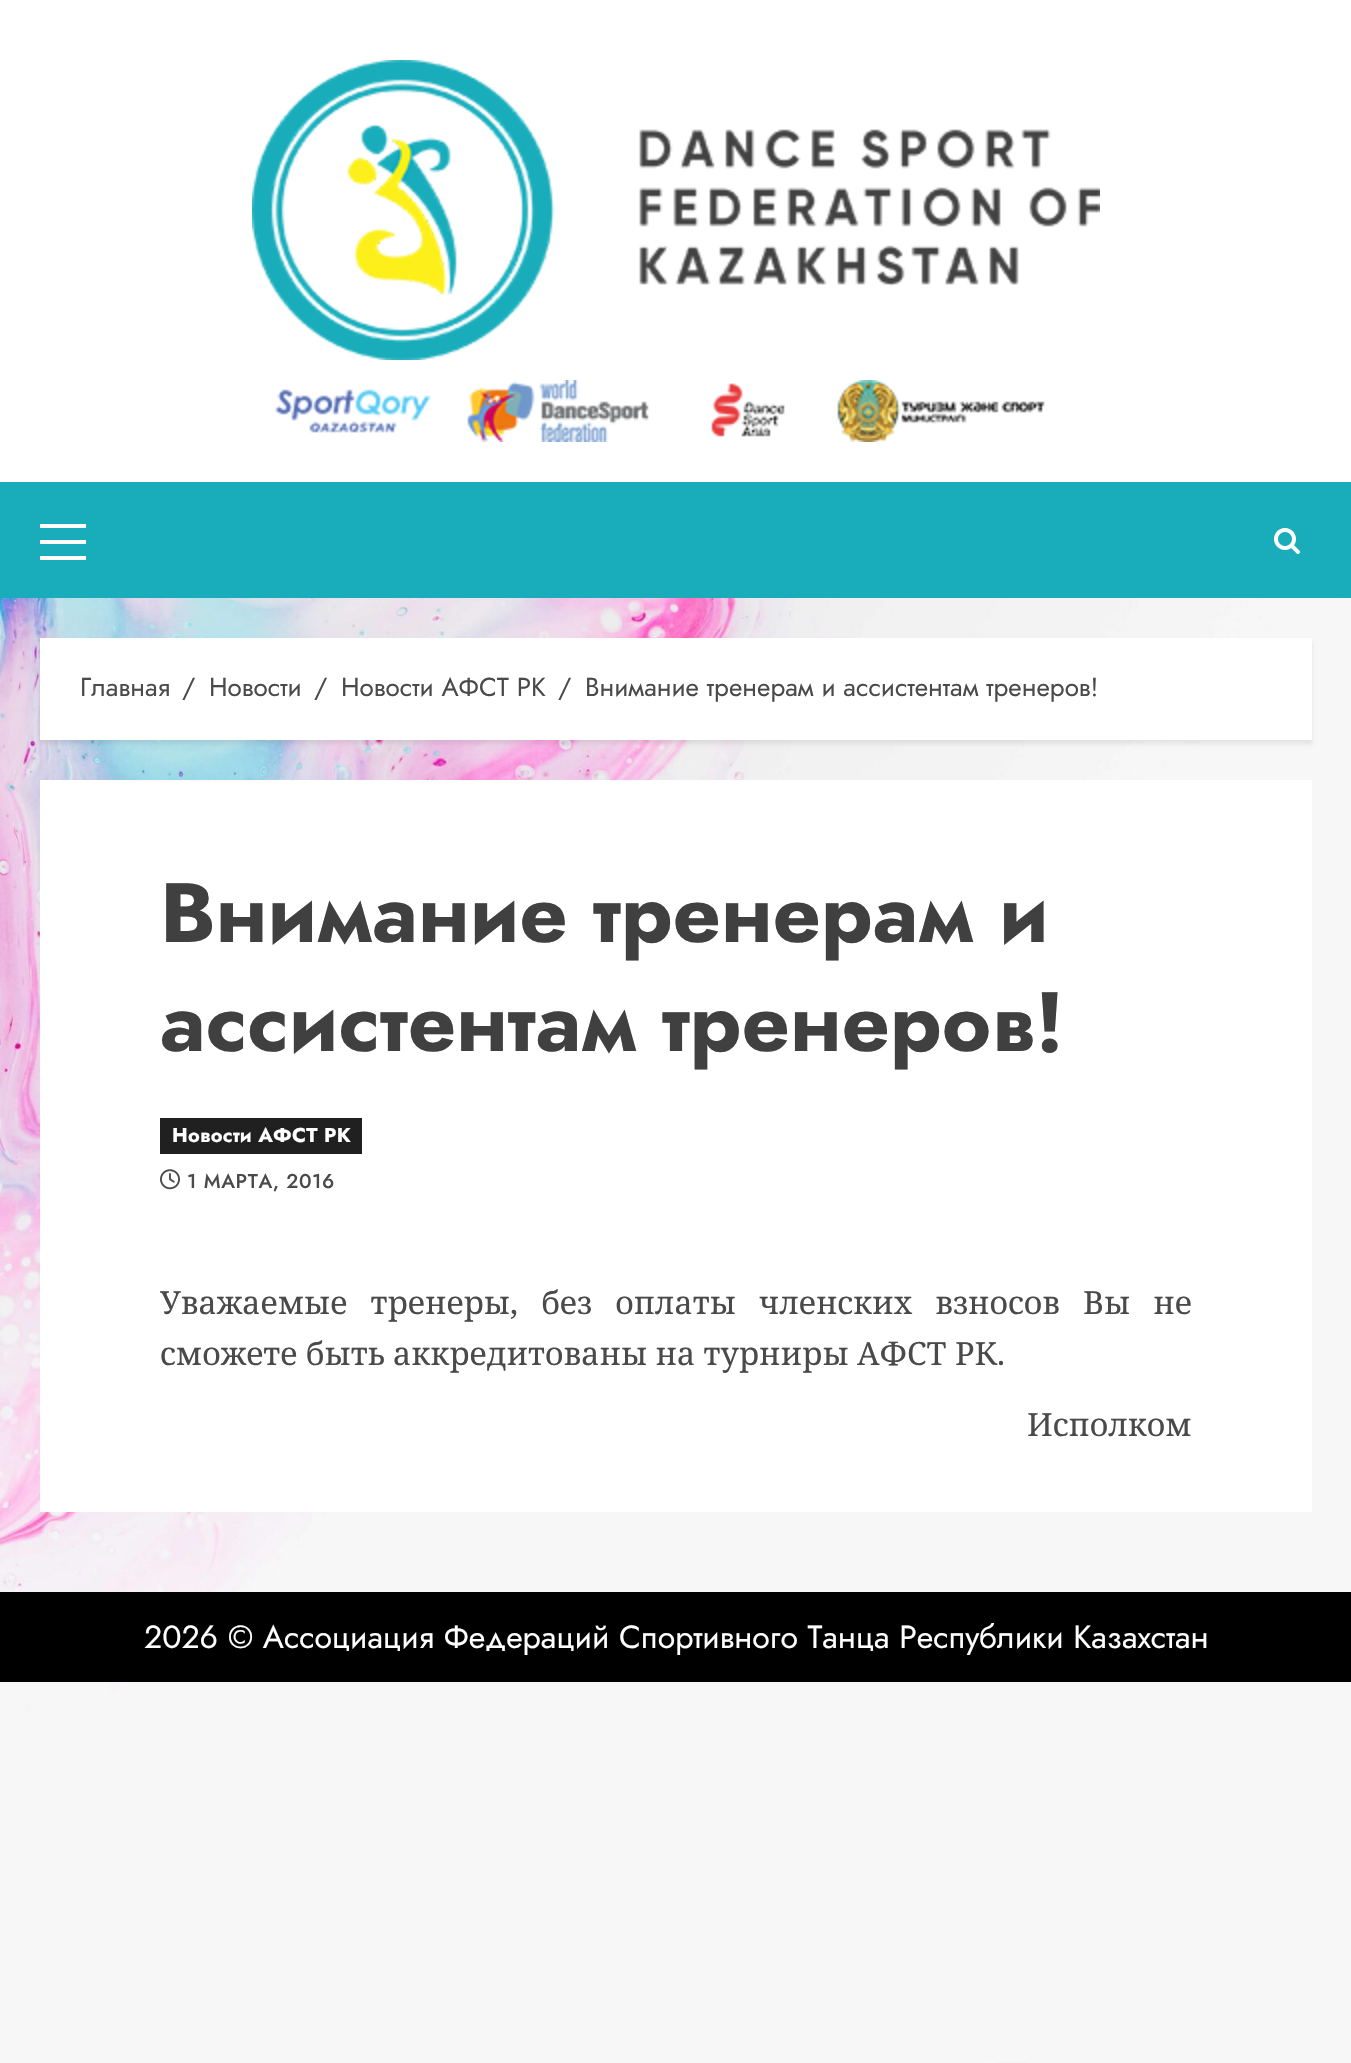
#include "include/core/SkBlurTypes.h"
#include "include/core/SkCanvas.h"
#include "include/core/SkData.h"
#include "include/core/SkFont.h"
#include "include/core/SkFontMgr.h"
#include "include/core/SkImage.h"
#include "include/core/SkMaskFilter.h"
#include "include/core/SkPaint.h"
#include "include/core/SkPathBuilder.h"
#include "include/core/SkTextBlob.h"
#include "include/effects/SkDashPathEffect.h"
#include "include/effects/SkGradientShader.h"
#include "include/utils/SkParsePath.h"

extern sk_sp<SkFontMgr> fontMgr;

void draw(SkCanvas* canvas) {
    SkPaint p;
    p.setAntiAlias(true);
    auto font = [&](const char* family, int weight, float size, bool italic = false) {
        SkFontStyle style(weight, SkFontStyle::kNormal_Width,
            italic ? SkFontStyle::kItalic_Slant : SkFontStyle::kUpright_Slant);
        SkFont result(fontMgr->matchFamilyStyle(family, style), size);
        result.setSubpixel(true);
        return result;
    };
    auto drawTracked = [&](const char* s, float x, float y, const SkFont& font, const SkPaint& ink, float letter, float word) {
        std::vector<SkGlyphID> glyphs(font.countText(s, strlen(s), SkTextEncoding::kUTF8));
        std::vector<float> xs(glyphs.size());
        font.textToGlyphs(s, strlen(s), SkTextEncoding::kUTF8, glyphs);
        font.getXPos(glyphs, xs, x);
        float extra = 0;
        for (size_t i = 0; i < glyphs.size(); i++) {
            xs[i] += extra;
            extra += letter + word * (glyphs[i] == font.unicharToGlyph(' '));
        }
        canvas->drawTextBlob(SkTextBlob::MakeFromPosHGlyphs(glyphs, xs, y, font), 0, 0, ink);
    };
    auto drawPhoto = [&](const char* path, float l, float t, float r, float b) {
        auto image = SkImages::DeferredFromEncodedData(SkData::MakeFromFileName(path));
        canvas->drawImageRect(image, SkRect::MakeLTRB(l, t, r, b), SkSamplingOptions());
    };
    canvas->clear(0xFFFFFFFF);
    drawPhoto("media/1.png", 0, 598, 1351, 2063);
    drawPhoto("media/2.png", 252, 60, 1100, 360);
    drawPhoto("media/3.png", 275, 380, 1045, 442);
    {
        const struct { float l, t, r, b; SkColor color; } items[] = {
            {0, 482, 1351, 598, 0xFF19ADBB},
            {40, 540, 86, 544, 0xFFFFFFFF},
            {40, 524, 86, 528, 0xFFFFFFFF},
            {40, 556, 86, 560, 0xFFFFFFFF},
        };
        for (auto [l, t, r, b, color] : items) {
            p.setColor(color);
            canvas->drawRect(SkRect::MakeLTRB(l, t, r, b), p);
        }
    }
    drawPhoto("media/4.png", 1274, 528, 1300, 554);
    p.setColor(0x14000000);
    p.setMaskFilter(SkMaskFilter::MakeBlur(kNormal_SkBlurStyle, 2));
    canvas->drawRect(SkRect::MakeLTRB(40, 642, 1312, 744), p);
    p.setMaskFilter(nullptr);
    p.setColor(0xFFFFFFFF);
    canvas->drawRect(SkRect::MakeLTRB(40, 638, 1312, 740), p);
    auto font1 = font("Jost", 400, 26);
    p.setColor(0xFF4A4A4A);
    {
        const struct { const char* s; float x, y; } items[] = {
            {"Главная", 80, 696},
            {"/", 182, 696},
            {"Новости", 209, 696},
            {"/", 314, 696},
            {"Новости АФСТ РК", 341, 696},
            {"/", 558, 696},
            {"Внимание тренерам и ассистентам тренеров!", 585, 696},
        };
        for (auto [s, x, y] : items) {
            canvas->drawString(s, x, y, font1, p);
        }
    }
    p.setColor(0xFFFFFFFF);
    canvas->drawRect(SkRect::MakeLTRB(40, 780, 1312, 1512), p);
    auto font2 = font("Jost", 700, 84);
    p.setColor(0xFF404040);
    canvas->drawString("Внимание тренерам и", 160, 942, font2, p);
    canvas->drawString("ассистентам тренеров!", 160, 1051, font2, p);
    p.setColor(0xFF202020);
    canvas->drawRect(SkRect::MakeLTRB(160, 1118, 362, 1154), p);
    auto font3 = font("Jost", 700, 20);
    p.setColor(0xFFFFFFFF);
    drawTracked("Новости АФСТ РК", 172, 1142, font3, p, 0.25f, 0);
    drawPhoto("media/5.png", 160, 1169, 180, 1190);
    auto font4 = font("Jost", 500, 20);
    p.setColor(0xFF4A4A4A);
    drawTracked("1 МАРТА, 2016", 187, 1188, font4, p, 0.6f, 0);
    auto font5 = font("Noto Serif", 400, 32);
    drawTracked("Уважаемые тренеры, без оплаты членских взносов Вы не", 160, 1314, font5, p, 0, 14.75f);
    canvas->drawString("сможете быть аккредитованы на турниры АФСТ РК.", 160, 1365, font5, p);
    canvas->drawString("Исполком", 1027, 1436, font5, p);
    p.setColor(0xFF000000);
    canvas->drawRect(SkRect::MakeLTRB(0, 1592, 1351, 1682), p);
    auto font6 = font("Jost", 400, 32);
    p.setColor(0xFFFFFFFF);
    canvas->drawString("2026 © Ассоциация Федераций Спортивного Танца Республики Казахстан", 144, 1648, font6, p);
}
